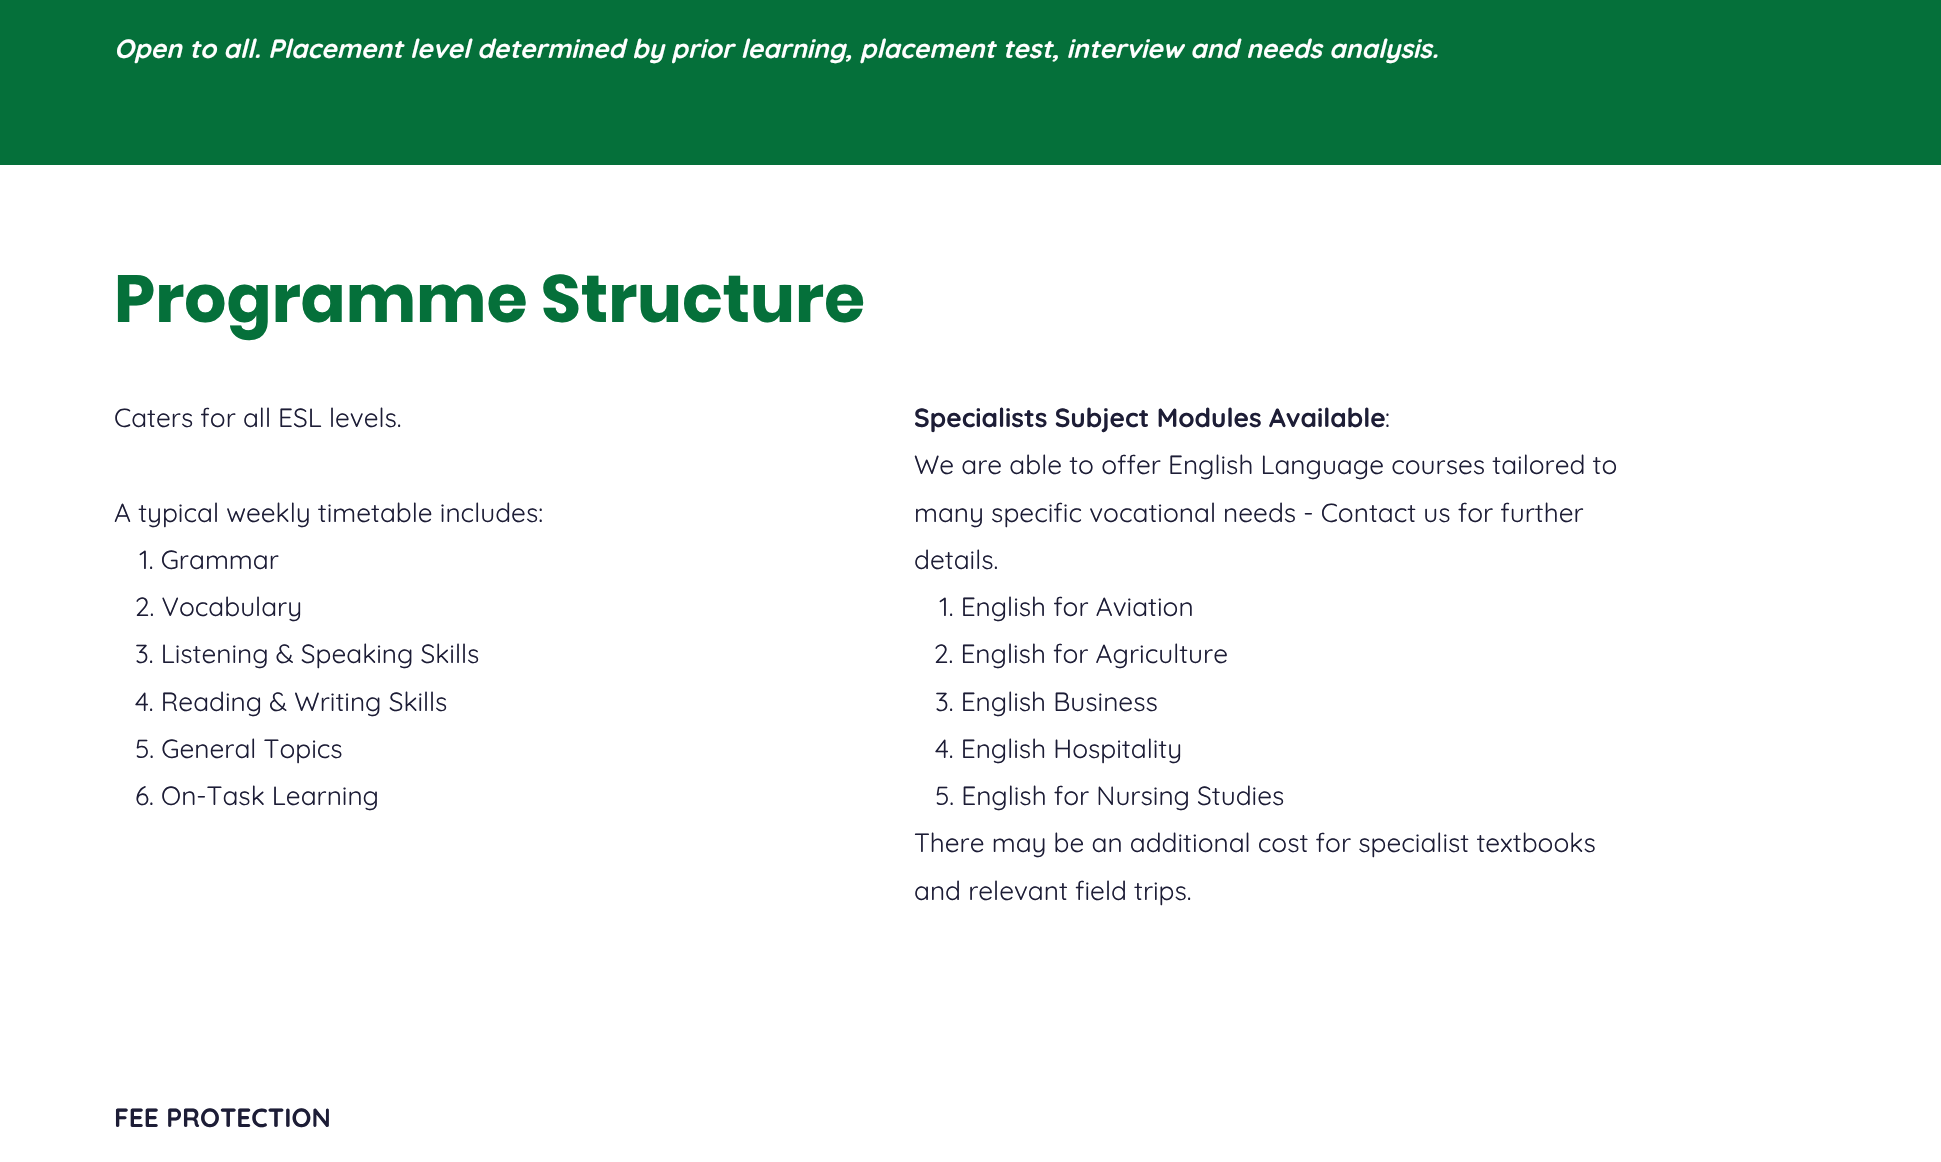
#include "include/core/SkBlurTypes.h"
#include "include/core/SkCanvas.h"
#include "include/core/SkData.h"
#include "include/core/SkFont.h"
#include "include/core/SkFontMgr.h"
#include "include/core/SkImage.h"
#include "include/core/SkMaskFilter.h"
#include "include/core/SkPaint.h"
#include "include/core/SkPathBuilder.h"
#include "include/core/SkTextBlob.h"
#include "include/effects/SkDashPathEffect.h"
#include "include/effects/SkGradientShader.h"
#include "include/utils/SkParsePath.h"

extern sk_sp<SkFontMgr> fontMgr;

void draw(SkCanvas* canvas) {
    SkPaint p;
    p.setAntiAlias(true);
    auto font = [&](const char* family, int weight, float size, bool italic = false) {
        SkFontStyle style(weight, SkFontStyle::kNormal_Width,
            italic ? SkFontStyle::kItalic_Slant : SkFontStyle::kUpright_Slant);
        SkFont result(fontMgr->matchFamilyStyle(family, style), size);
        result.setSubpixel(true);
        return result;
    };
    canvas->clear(0xFFFFFFFF);
    p.setColor(0xFF05703A);
    canvas->drawRect(SkRect::MakeLTRB(0, 0, 1941, 165), p);
    auto font1 = font("Quicksand", 700, 26.25f, true);
    p.setColor(0xFFFFFFFF);
    canvas->drawString("Open to all. Placement level determined by prior learning, placement test, interview and needs analysis.", 114, 58, font1, p);
    auto font2 = font("Poppins", 700, 66.5f);
    p.setColor(0xFF05703A);
    canvas->drawString("Programme Structure", 114, 322, font2, p);
    auto font3 = font("Quicksand", 400, 26.25f);
    p.setColor(0xFF1D1D36);
    {
        const struct { const char* s; float x, y; } items[] = {
            {"Caters for all ESL levels.", 114, 427},
            {"A typical weekly timetable includes:", 114, 522},
            {"1. Grammar", 139, 569},
            {"2. Vocabulary", 135, 616},
            {"3. Listening & Speaking Skills", 135, 663},
            {"4. Reading & Writing Skills", 135, 711},
            {"5. General Topics", 135, 758},
            {"6. On-Task Learning", 135, 805},
        };
        for (auto [s, x, y] : items) {
            canvas->drawString(s, x, y, font3, p);
        }
    }
    auto font4 = font("Quicksand", 700, 26.25f);
    canvas->drawString("Specialists Subject Modules Available", 914, 427, font4, p);
    {
        const struct { const char* s; float x, y; } items[] = {
            {":", 1385, 427},
            {"We are able to offer English Language courses tailored to", 914, 474},
            {"many specific vocational needs - Contact us for further", 914, 522},
            {"details.", 914, 569},
            {"1. English for Aviation", 939, 616},
            {"2. English for Agriculture", 934, 663},
            {"3. English Business", 935, 711},
            {"4. English Hospitality", 935, 758},
            {"5. English for Nursing Studies", 935, 805},
            {"There may be an additional cost for specialist textbooks", 914, 852},
            {"and relevant field trips.", 914, 900},
        };
        for (auto [s, x, y] : items) {
            canvas->drawString(s, x, y, font3, p);
        }
    }
    canvas->drawString("FEE PROTECTION", 114, 1127, font4, p);
}
